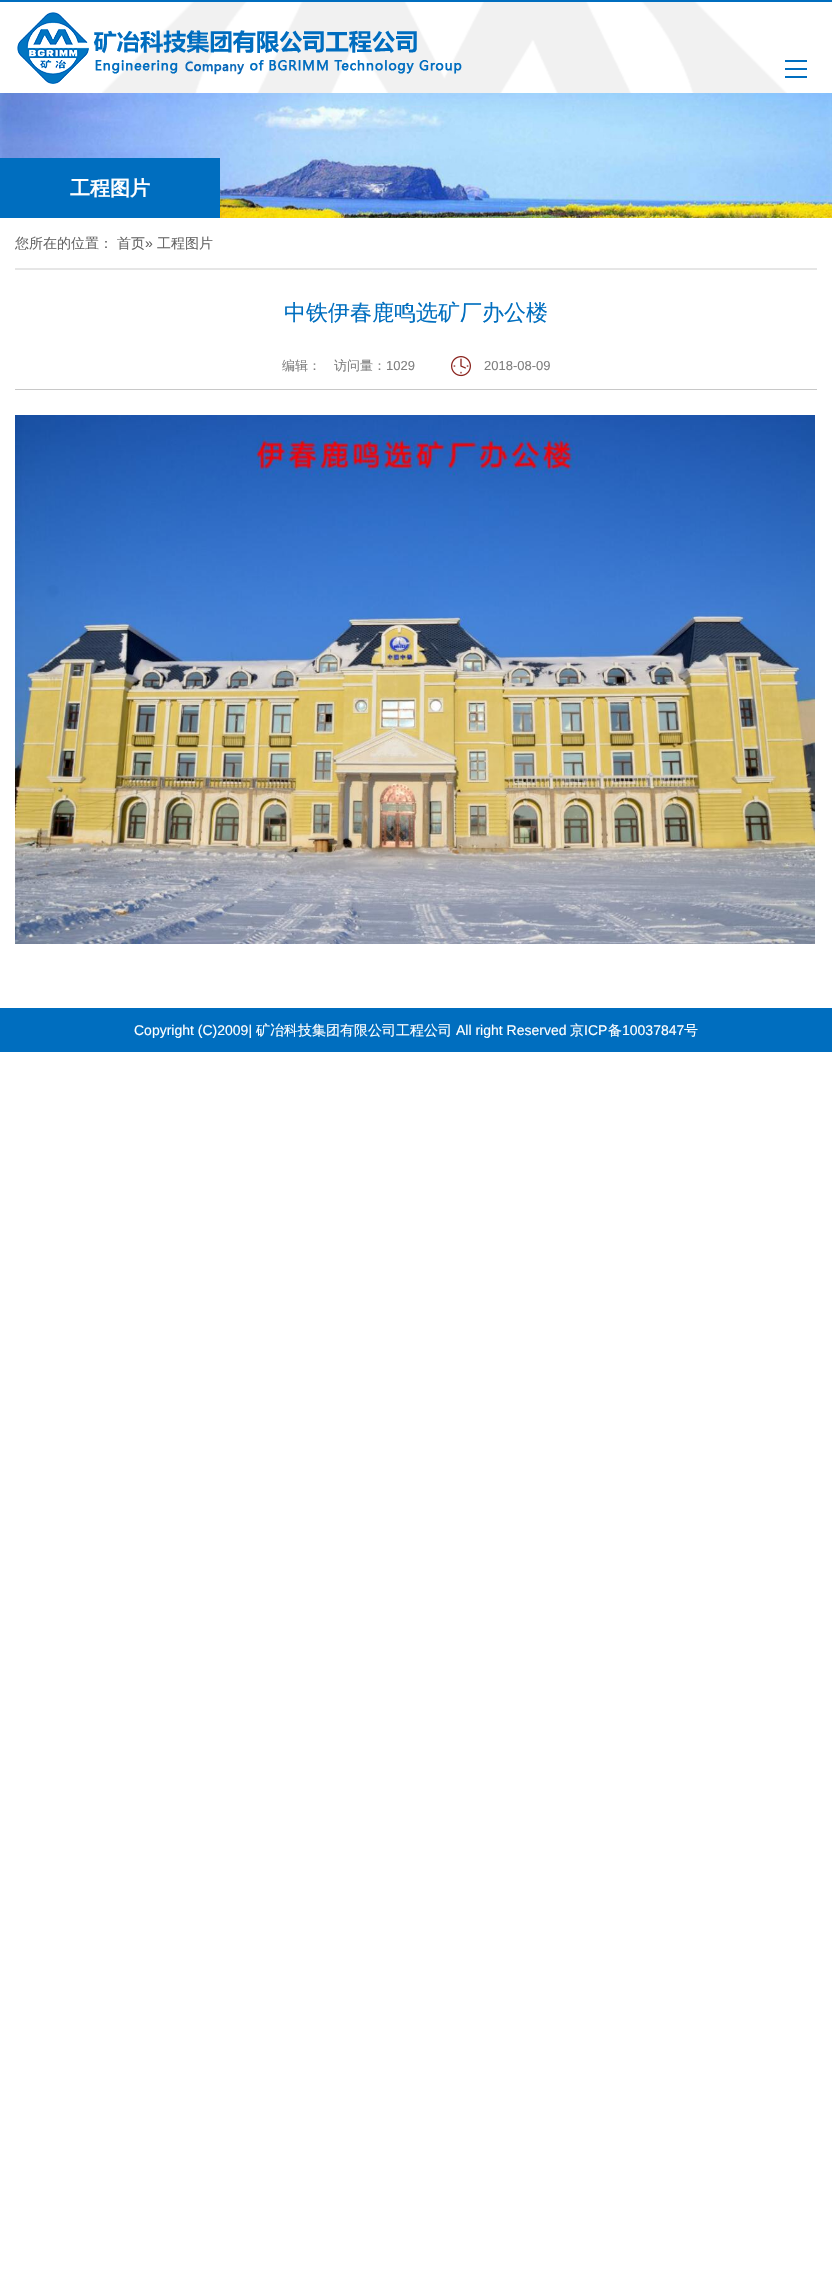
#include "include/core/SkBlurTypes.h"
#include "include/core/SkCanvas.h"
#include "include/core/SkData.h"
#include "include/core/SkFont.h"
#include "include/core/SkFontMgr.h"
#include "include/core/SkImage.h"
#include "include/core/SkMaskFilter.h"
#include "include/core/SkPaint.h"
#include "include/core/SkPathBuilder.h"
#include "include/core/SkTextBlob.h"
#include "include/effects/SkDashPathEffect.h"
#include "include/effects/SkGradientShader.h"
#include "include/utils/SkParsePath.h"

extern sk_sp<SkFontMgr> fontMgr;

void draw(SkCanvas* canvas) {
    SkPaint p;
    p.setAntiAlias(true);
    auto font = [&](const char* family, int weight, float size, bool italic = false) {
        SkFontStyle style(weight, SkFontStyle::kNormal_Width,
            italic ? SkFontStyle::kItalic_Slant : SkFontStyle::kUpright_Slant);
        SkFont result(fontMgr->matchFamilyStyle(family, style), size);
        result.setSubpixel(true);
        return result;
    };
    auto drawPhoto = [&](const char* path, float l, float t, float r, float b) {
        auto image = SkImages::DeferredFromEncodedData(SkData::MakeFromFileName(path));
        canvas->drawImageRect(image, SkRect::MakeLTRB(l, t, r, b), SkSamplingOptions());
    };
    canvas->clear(0xFFFFFFFF);
    p.setColor(0xFF006EBF);
    canvas->drawRect(SkRect::MakeLTRB(0, 0, 832, 2), p);
    drawPhoto("media/1.png", 102, 2, 787, 93);
    drawPhoto("media/2.png", 17, 12, 462, 84);
    {
        const struct { float l, t, r, b; SkColor color; } items[] = {
            {785, 60, 807, 62, 0xFF006EBF},
            {785, 68, 807, 70, 0xFF006EBF},
            {785, 76, 807, 78, 0xFF006EBF},
        };
        for (auto [l, t, r, b, color] : items) {
            p.setColor(color);
            canvas->drawRect(SkRect::MakeLTRB(l, t, r, b), p);
        }
    }
    drawPhoto("media/3.png", 0, 93, 832, 218);
    canvas->drawRect(SkRect::MakeLTRB(0, 158, 220, 218), p);
    auto font1 = font("WenQuanYi Zen Hei", 700, 20);
    p.setColor(0xFFFFFFFF);
    canvas->drawString("工程图片", 70, 195, font1, p);
    p.setColor(0xFFE6E6E6);
    canvas->drawRect(SkRect::MakeLTRB(15, 268, 817, 270), p);
    auto font2 = font("WenQuanYi Zen Hei", 500, 14);
    p.setColor(0xFF666666);
    canvas->drawString("您所在的位置：", 15, 248, font2, p);
    canvas->drawString("首页", 117, 248, font2, p);
    auto font3 = font("Liberation Sans", 400, 14);
    canvas->drawString("»", 145, 248, font3, p);
    canvas->drawString("工程图片", 157, 248, font2, p);
    auto font4 = font("WenQuanYi Zen Hei", 500, 22);
    p.setColor(0xFF006EBF);
    canvas->drawString("中铁伊春鹿鸣选矿厂办公楼", 284, 320, font4, p);
    p.setColor(0xFFC8C8C8);
    canvas->drawRect(SkRect::MakeLTRB(15, 389, 817, 390), p);
    auto font5 = font("WenQuanYi Zen Hei", 500, 13);
    p.setColor(0xFF808080);
    canvas->drawString("编辑：", 282, 370, font5, p);
    canvas->drawString("访问量：", 334, 370, font5, p);
    auto font6 = font("Liberation Sans", 400, 13);
    canvas->drawString("1029", 386, 370, font6, p);
    drawPhoto("media/4.png", 451, 356, 471, 377);
    canvas->drawString("2018-08-09", 484, 370, font6, p);
    drawPhoto("media/5.png", 15, 415, 815, 944);
    p.setColor(0xFF006EBF);
    canvas->drawRect(SkRect::MakeLTRB(0, 1008, 832, 1052), p);
    p.setColor(0xFFFFFFFF);
    canvas->drawString("Copyright (C)2009|", 134, 1035, font3, p);
    canvas->drawString("矿冶科技集团有限公司工程公司", 256, 1035, font2, p);
    canvas->drawString("All right Reserved", 456, 1035, font3, p);
    canvas->drawString("京", 570, 1035, font2, p);
    canvas->drawString("ICP", 584, 1035, font3, p);
    canvas->drawString("备", 608, 1035, font2, p);
    canvas->drawString("10037847", 622, 1035, font3, p);
    canvas->drawString("号", 684, 1035, font2, p);
}
